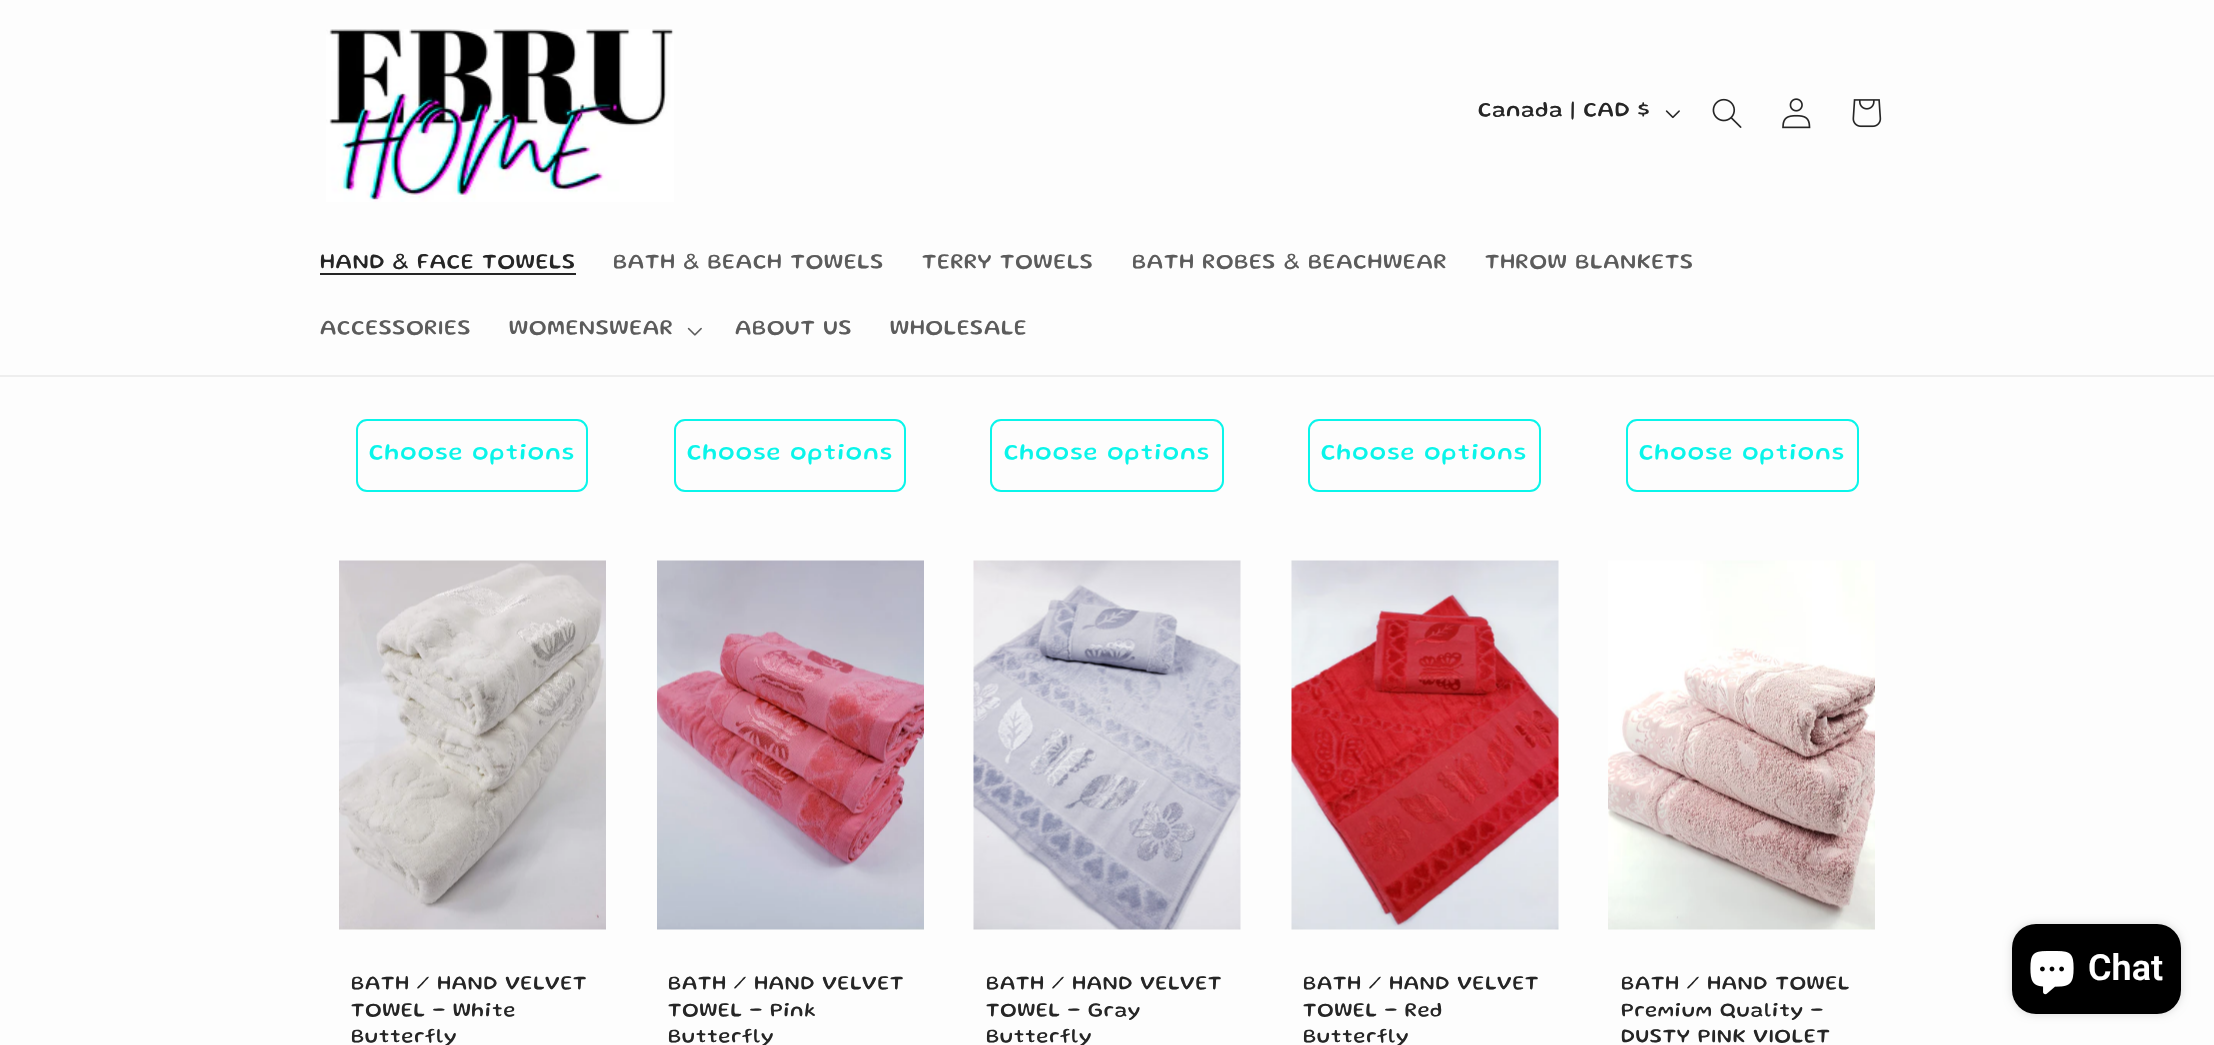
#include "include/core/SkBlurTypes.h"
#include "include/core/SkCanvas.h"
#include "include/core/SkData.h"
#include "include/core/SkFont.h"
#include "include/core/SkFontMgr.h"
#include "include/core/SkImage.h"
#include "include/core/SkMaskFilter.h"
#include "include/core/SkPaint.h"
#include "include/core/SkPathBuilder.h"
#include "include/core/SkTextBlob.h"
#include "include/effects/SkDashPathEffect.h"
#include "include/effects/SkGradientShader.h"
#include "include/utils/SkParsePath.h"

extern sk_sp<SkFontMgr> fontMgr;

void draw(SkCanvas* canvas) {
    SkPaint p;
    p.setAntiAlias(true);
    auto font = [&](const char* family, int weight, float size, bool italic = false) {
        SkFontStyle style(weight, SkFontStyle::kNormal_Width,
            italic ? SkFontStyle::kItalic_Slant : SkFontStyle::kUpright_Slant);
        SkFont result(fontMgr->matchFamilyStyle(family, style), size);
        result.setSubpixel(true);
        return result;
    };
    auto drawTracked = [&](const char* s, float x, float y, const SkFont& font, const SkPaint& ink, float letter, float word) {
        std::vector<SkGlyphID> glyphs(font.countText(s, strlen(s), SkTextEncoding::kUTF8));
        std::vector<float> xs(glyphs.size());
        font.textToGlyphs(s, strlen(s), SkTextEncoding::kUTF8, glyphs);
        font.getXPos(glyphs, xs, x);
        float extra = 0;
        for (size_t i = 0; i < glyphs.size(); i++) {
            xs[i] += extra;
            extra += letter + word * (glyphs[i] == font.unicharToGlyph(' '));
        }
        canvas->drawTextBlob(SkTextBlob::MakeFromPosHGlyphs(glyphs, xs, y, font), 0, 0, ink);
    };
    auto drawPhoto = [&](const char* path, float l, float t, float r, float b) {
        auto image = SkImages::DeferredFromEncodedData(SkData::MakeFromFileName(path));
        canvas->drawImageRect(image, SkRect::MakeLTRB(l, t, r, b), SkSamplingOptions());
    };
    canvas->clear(0xFFFDFDFD);
    p.setColor(0xFFEEEEEE);
    canvas->drawRect(SkRect::MakeLTRB(0, 375, 2214, 377), p);
    drawPhoto("media/1.png", 326, 29, 674, 202);
    auto font1 = font("Gluten", 400, 22);
    p.setColor(0xFF262626);
    drawTracked("Canada | CAD $", 1478, 116, font1, p, 0.95f, 0);
    drawPhoto("media/2.png", 1665, 110, 1680, 119);
    drawPhoto("media/3.png", 1712, 98, 1742, 128);
    drawPhoto("media/4.png", 1782, 98, 1811, 129);
    drawPhoto("media/5.png", 1852, 99, 1882, 128);
    drawTracked("HAND & FACE TOWELS", 320, 268, font1, p, 0.95f, 0);
    canvas->drawRect(SkRect::MakeLTRB(320, 273, 576, 275), p);
    p.setColor(0xFF5C5C5C);
    {
        const struct { const char* s; float x, y; } items[] = {
            {"BATH & BEACH TOWELS", 613, 268},
            {"TERRY TOWELS", 922, 268},
            {"BATH ROBES & BEACHWEAR", 1132, 268},
            {"THROW BLANKETS", 1485, 268},
            {"ACCESSORIES", 320, 334},
            {"WOMENSWEAR", 509, 334},
        };
        for (auto [s, x, y] : items) {
            drawTracked(s, x, y, font1, p, 0.95f, 0);
        }
    }
    drawPhoto("media/6.png", 687, 327, 702, 336);
    drawTracked("ABOUT US", 735, 334, font1, p, 0.95f, 0);
    drawTracked("WHOLESALE", 890, 334, font1, p, 0.95f, 0);
    p.setStyle(SkPaint::kStroke_Style);
    p.setStrokeWidth(2);
    p.setColor(0xFF09F5EA);
    canvas->drawRoundRect(SkRect::MakeLTRB(357, 420, 587, 491), 10, 10, p);
    auto font2 = font("Gluten", 400, 23.6f);
    p.setStyle(SkPaint::kFill_Style);
    drawTracked("Choose options", 369, 459, font2, p, 1.6f, 0);
    p.setStyle(SkPaint::kStroke_Style);
    canvas->drawRoundRect(SkRect::MakeLTRB(675, 420, 905, 491), 10, 10, p);
    p.setStyle(SkPaint::kFill_Style);
    drawTracked("Choose options", 687, 459, font2, p, 1.6f, 0);
    p.setStyle(SkPaint::kStroke_Style);
    canvas->drawRoundRect(SkRect::MakeLTRB(991, 420, 1223, 491), 10, 10, p);
    p.setStyle(SkPaint::kFill_Style);
    drawTracked("Choose options", 1004, 459, font2, p, 1.6f, 0);
    p.setStyle(SkPaint::kStroke_Style);
    canvas->drawRoundRect(SkRect::MakeLTRB(1309, 420, 1540, 491), 10, 10, p);
    p.setStyle(SkPaint::kFill_Style);
    drawTracked("Choose options", 1321, 459, font2, p, 1.6f, 0);
    p.setStyle(SkPaint::kStroke_Style);
    canvas->drawRoundRect(SkRect::MakeLTRB(1627, 420, 1858, 491), 10, 10, p);
    p.setStyle(SkPaint::kFill_Style);
    drawTracked("Choose options", 1639, 459, font2, p, 1.6f, 0);
    drawPhoto("media/7.png", 339, 560, 606, 930);
    auto font3 = font("Gluten", 400, 20.5f);
    p.setColor(0xFF262626);
    {
        const struct { const char* s; float x, y; } items[] = {
            {"BATH / HAND VELVET", 351, 989},
            {"TOWEL - White", 351, 1016},
            {"Butterfly", 351, 1042},
        };
        for (auto [s, x, y] : items) {
            drawTracked(s, x, y, font3, p, 0.95f, 0);
        }
    }
    drawPhoto("media/8.png", 657, 560, 924, 930);
    {
        const struct { const char* s; float x, y; } items[] = {
            {"BATH / HAND VELVET", 668, 989},
            {"TOWEL - Pink", 668, 1016},
            {"Butterfly", 668, 1042},
        };
        for (auto [s, x, y] : items) {
            drawTracked(s, x, y, font3, p, 0.95f, 0);
        }
    }
    drawPhoto("media/9.png", 973, 560, 1241, 930);
    {
        const struct { const char* s; float x, y; } items[] = {
            {"BATH / HAND VELVET", 986, 989},
            {"TOWEL - Gray", 986, 1016},
            {"Butterfly", 986, 1042},
        };
        for (auto [s, x, y] : items) {
            drawTracked(s, x, y, font3, p, 0.95f, 0);
        }
    }
    drawPhoto("media/10.png", 1291, 560, 1559, 930);
    {
        const struct { const char* s; float x, y; } items[] = {
            {"BATH / HAND VELVET", 1303, 989},
            {"TOWEL - Red", 1303, 1016},
            {"Butterfly", 1303, 1042},
        };
        for (auto [s, x, y] : items) {
            drawTracked(s, x, y, font3, p, 0.95f, 0);
        }
    }
    drawPhoto("media/11.png", 1608, 560, 1875, 930);
    {
        const struct { const char* s; float x, y; } items[] = {
            {"BATH / HAND TOWEL", 1621, 989},
            {"Premium Quality -", 1621, 1016},
            {"DUSTY PINK VIOLET", 1621, 1042},
        };
        for (auto [s, x, y] : items) {
            drawTracked(s, x, y, font3, p, 0.95f, 0);
        }
    }
    p.setColor(0x26000000);
    p.setMaskFilter(SkMaskFilter::MakeBlur(kNormal_SkBlurStyle, 4));
    canvas->drawRoundRect(SkRect::MakeLTRB(2012, 924, 2181, 1014), 24, 24, p);
    p.setMaskFilter(nullptr);
    p.setColor(0xFF000000);
    canvas->drawRoundRect(SkRect::MakeLTRB(2012, 924, 2181, 1014), 24, 24, p);
    drawPhoto("media/12.png", 2030, 951, 2074, 995);
    auto font4 = font("Roboto", 600, 36);
    p.setColor(0xFFFFFFFF);
    canvas->drawString("Chat", 2088, 980, font4, p);
}
